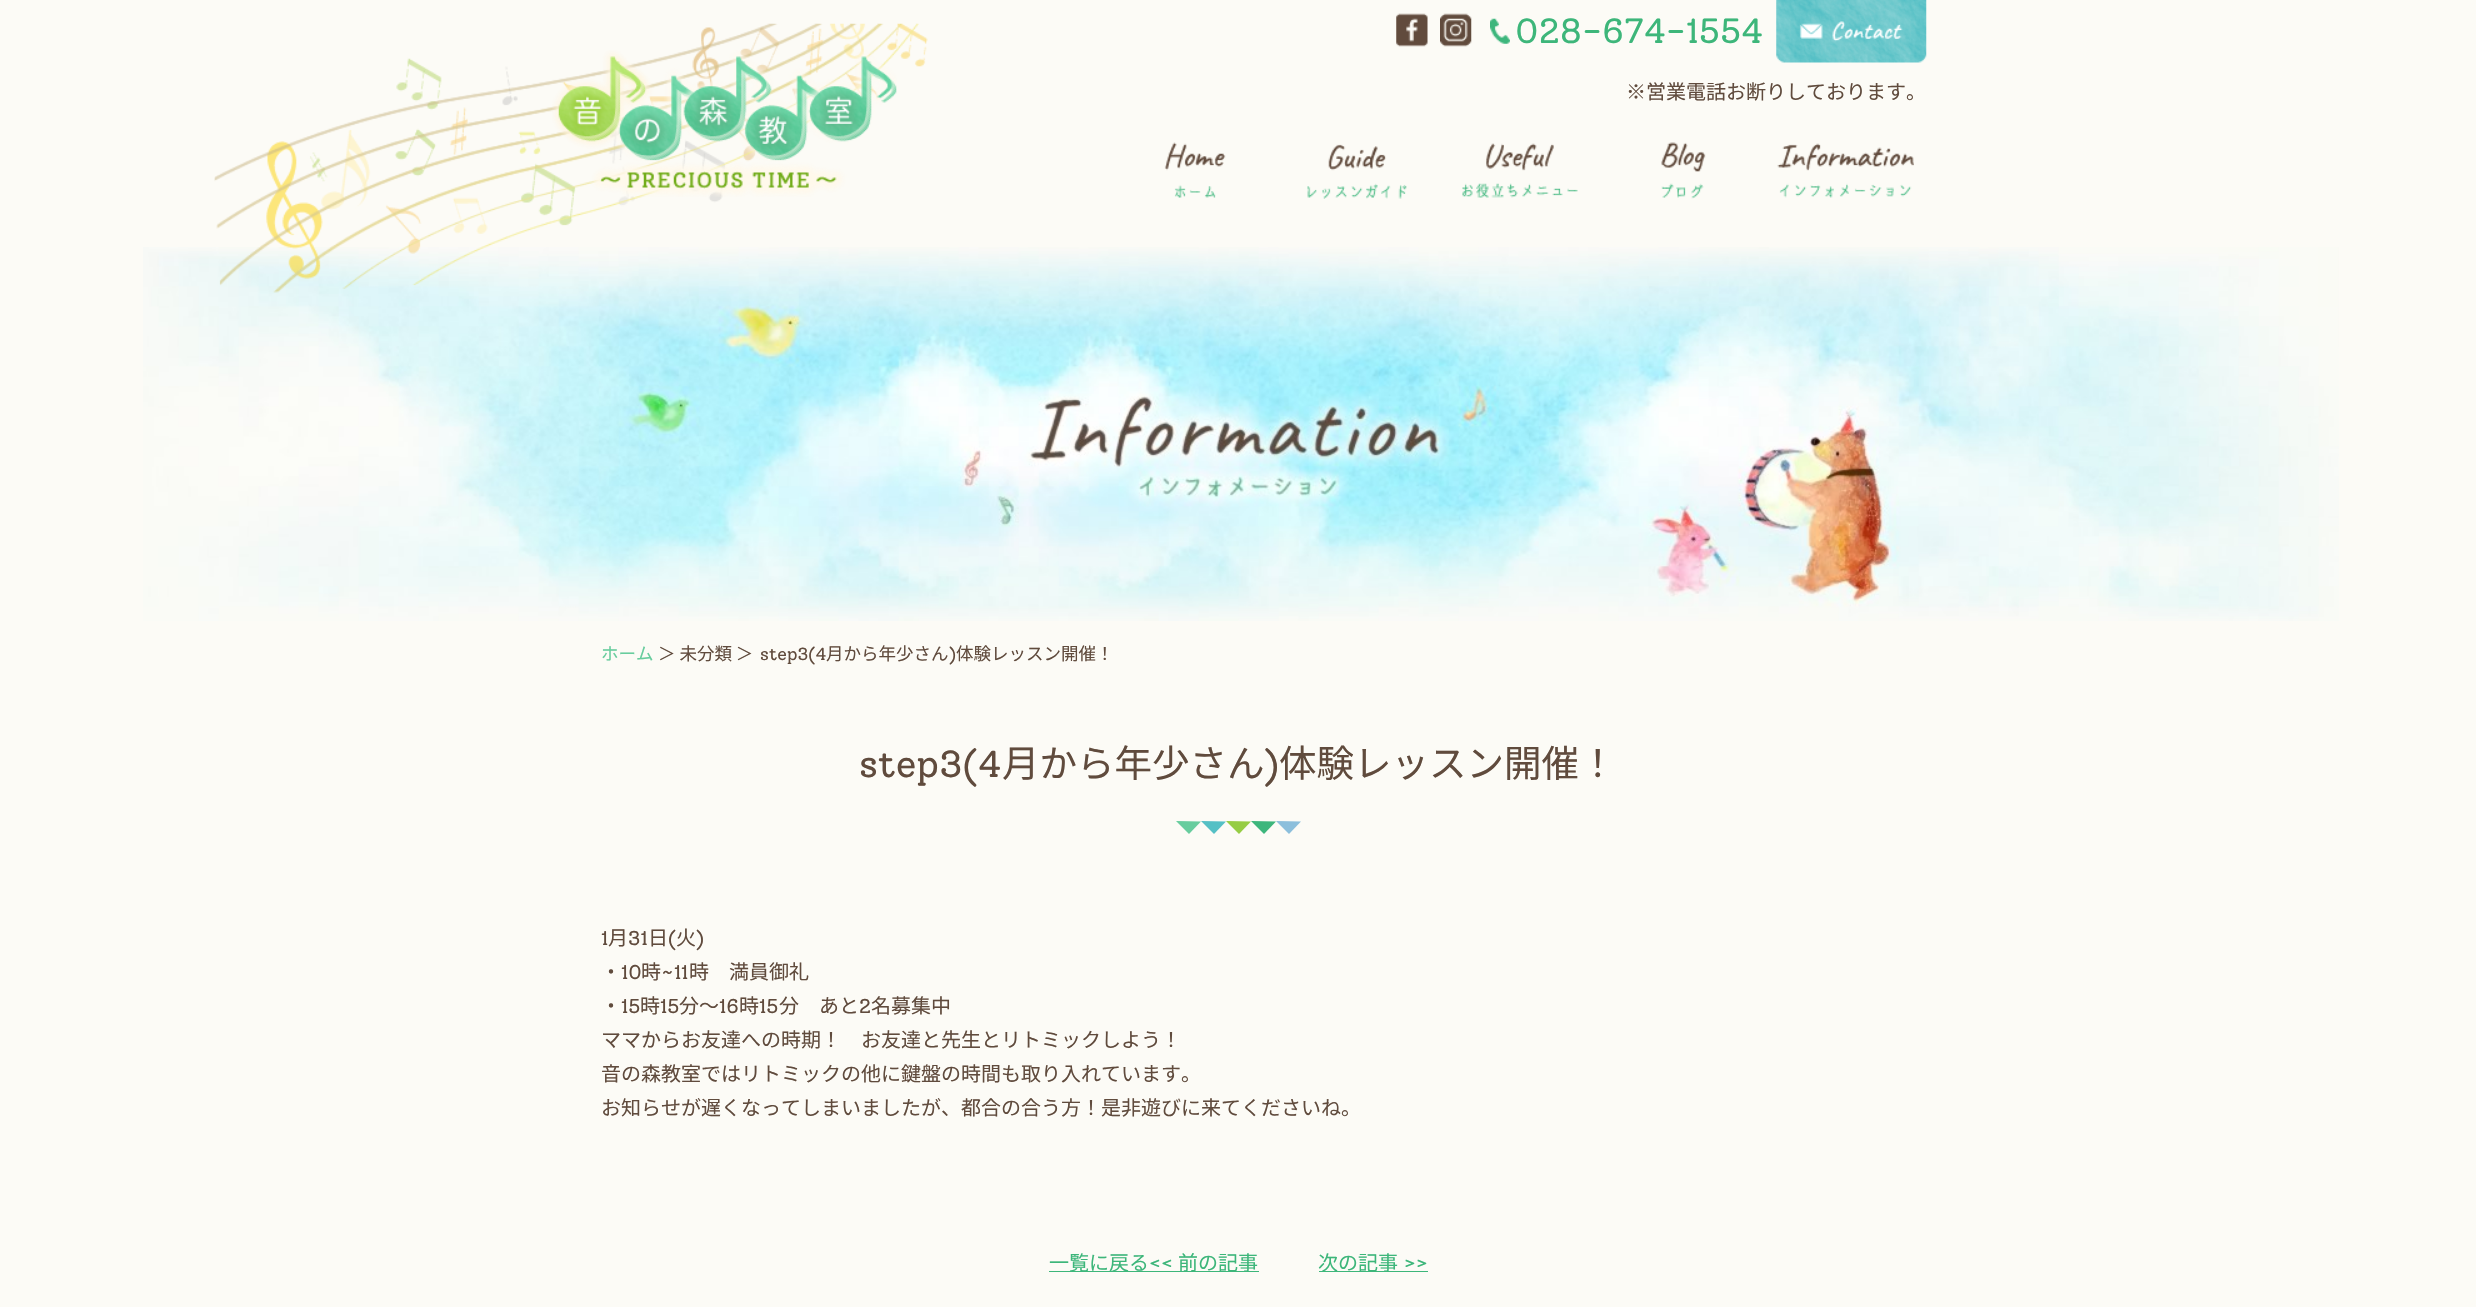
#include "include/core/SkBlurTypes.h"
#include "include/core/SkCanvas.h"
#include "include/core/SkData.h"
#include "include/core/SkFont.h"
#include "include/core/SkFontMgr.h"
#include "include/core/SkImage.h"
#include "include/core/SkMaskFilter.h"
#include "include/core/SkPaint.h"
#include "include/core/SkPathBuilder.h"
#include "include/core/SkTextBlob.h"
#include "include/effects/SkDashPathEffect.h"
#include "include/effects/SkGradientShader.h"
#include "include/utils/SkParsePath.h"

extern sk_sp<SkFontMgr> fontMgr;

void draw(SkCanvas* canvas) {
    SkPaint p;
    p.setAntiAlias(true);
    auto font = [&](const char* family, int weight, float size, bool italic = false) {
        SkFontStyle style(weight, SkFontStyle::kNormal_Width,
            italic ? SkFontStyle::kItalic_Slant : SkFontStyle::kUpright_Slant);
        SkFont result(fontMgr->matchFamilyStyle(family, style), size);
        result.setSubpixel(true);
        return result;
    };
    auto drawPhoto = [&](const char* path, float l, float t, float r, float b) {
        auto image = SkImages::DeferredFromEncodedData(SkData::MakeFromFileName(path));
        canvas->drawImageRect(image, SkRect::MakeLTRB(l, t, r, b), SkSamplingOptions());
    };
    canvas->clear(0xFFFCFBF6);
    drawPhoto("media/12.png", 143, 247, 2339, 621);
    drawPhoto("media/1.png", 214, 23, 928, 293);
    drawPhoto("media/2.png", 552, 50, 897, 197);
    drawPhoto("media/3.png", 1396, 13, 1428, 47);
    drawPhoto("media/4.png", 1440, 13, 1472, 47);
    drawPhoto("media/5.png", 1490, 18, 1510, 44);
    auto font1 = font("Solway", 400, 35);
    p.setColor(0xFF3DB67A);
    canvas->drawString("028-674-1554", 1515, 43, font1, p);
    drawPhoto("media/6.png", 1776, 0, 1927, 63);
    auto font2 = font("Noto Sans JP", 100, 20);
    p.setColor(0xFF604B3D);
    canvas->drawString("※営業電話お断りしております。", 1626, 99, font2, p);
    drawPhoto("media/7.png", 1164, 142, 1226, 198);
    drawPhoto("media/8.png", 1307, 144, 1407, 199);
    drawPhoto("media/9.png", 1462, 143, 1578, 198);
    drawPhoto("media/10.png", 1661, 142, 1706, 199);
    drawPhoto("media/11.png", 1777, 143, 1914, 198);
    auto font3 = font("Noto Sans JP", 100, 17.5f);
    p.setColor(0xFF68CD9E);
    canvas->drawString("ホーム", 601, 660, font3, p);
    p.setColor(0xFF604B3D);
    canvas->drawString("＞ 未分類 ＞", 658, 660, font3, p);
    auto font4 = font("Solway", 400, 17.5f);
    canvas->drawString("step3(4", 760, 660, font4, p);
    canvas->drawString("月から年少さん", 826, 660, font3, p);
    canvas->drawString(")", 949, 660, font4, p);
    canvas->drawString("体験レッスン開催！", 956, 660, font3, p);
    p.setColor(0xFF68CD9E);
    canvas->drawPath(SkPathBuilder(SkPathFillType::kEvenOdd).moveTo(1176, 821).lineTo(1201, 821.5f).lineTo(1189, 834).close().detach(), p);
    p.setColor(0xFF55C0C5);
    canvas->drawPath(SkPathBuilder(SkPathFillType::kEvenOdd).moveTo(1201, 821).lineTo(1226, 821.5f).lineTo(1214, 834).close().detach(), p);
    p.setColor(0xFF96CD44);
    canvas->drawPath(SkPathBuilder(SkPathFillType::kEvenOdd).moveTo(1226, 821).lineTo(1251, 821.5f).lineTo(1239, 834).close().detach(), p);
    p.setColor(0xFF8CBFDC);
    canvas->drawPath(SkPathBuilder(SkPathFillType::kEvenOdd).moveTo(1276, 821).lineTo(1301, 821.5f).lineTo(1289, 834).close().detach(), p);
    p.setColor(0xFF3DB67C);
    canvas->drawPath(SkPathBuilder(SkPathFillType::kEvenOdd).moveTo(1251, 821).lineTo(1276, 821.5f).lineTo(1264, 834).close().detach(), p);
    auto font5 = font("Solway", 400, 37.5f);
    p.setColor(0xFF604B3D);
    canvas->drawString("step3(4", 859, 777, font5, p);
    auto font6 = font("Noto Sans JP", 100, 37.5f);
    canvas->drawString("月から年少さん", 1002, 777, font6, p);
    canvas->drawString(")", 1264, 777, font5, p);
    canvas->drawString("体験レッスン開催！", 1279, 777, font6, p);
    auto font7 = font("Solway", 400, 20);
    canvas->drawString("1", 601, 945, font7, p);
    canvas->drawString("月", 608, 945, font2, p);
    canvas->drawString("31", 628, 945, font7, p);
    canvas->drawString("日", 648, 945, font2, p);
    canvas->drawString("(", 668, 945, font7, p);
    canvas->drawString("火", 676, 945, font2, p);
    canvas->drawString(")", 696, 945, font7, p);
    canvas->drawString("・", 601, 979, font2, p);
    canvas->drawString("10", 621, 979, font7, p);
    canvas->drawString("時", 641, 979, font2, p);
    canvas->drawString("~11", 661, 979, font7, p);
    canvas->drawString("時　満員御礼", 689, 979, font2, p);
    canvas->drawString("・", 601, 1013, font2, p);
    canvas->drawString("15", 621, 1013, font7, p);
    canvas->drawString("時", 640, 1013, font2, p);
    canvas->drawString("15", 660, 1013, font7, p);
    canvas->drawString("分～", 679, 1013, font2, p);
    canvas->drawString("16", 719, 1013, font7, p);
    canvas->drawString("時", 739, 1013, font2, p);
    canvas->drawString("15", 759, 1013, font7, p);
    canvas->drawString("分　あと", 779, 1013, font2, p);
    canvas->drawString("2", 859, 1013, font7, p);
    {
        const struct { const char* s; float x, y; } items[] = {
            {"名募集中", 871, 1013},
            {"ママからお友達への時期！　お友達と先生とリトミックしよう！", 601, 1047},
            {"音の森教室ではリトミックの他に鍵盤の時間も取り入れています。", 601, 1081},
            {"お知らせが遅くなってしまいましたが、都合の合う方！是非遊びに来てくださいね。", 601, 1115},
        };
        for (auto [s, x, y] : items) {
            canvas->drawString(s, x, y, font2, p);
        }
    }
    p.setColor(0xFF3DB67A);
    canvas->drawRect(SkRect::MakeLTRB(1049, 1271, 1259, 1272), p);
    canvas->drawString("一覧に戻る", 1049, 1270, font2, p);
    canvas->drawString("<<", 1149, 1270, font7, p);
    canvas->drawString("前の記事", 1178, 1270, font2, p);
    canvas->drawRect(SkRect::MakeLTRB(1319, 1271, 1428, 1272), p);
    canvas->drawString("次の記事", 1318, 1270, font2, p);
    canvas->drawString(">>", 1404, 1270, font7, p);
}
